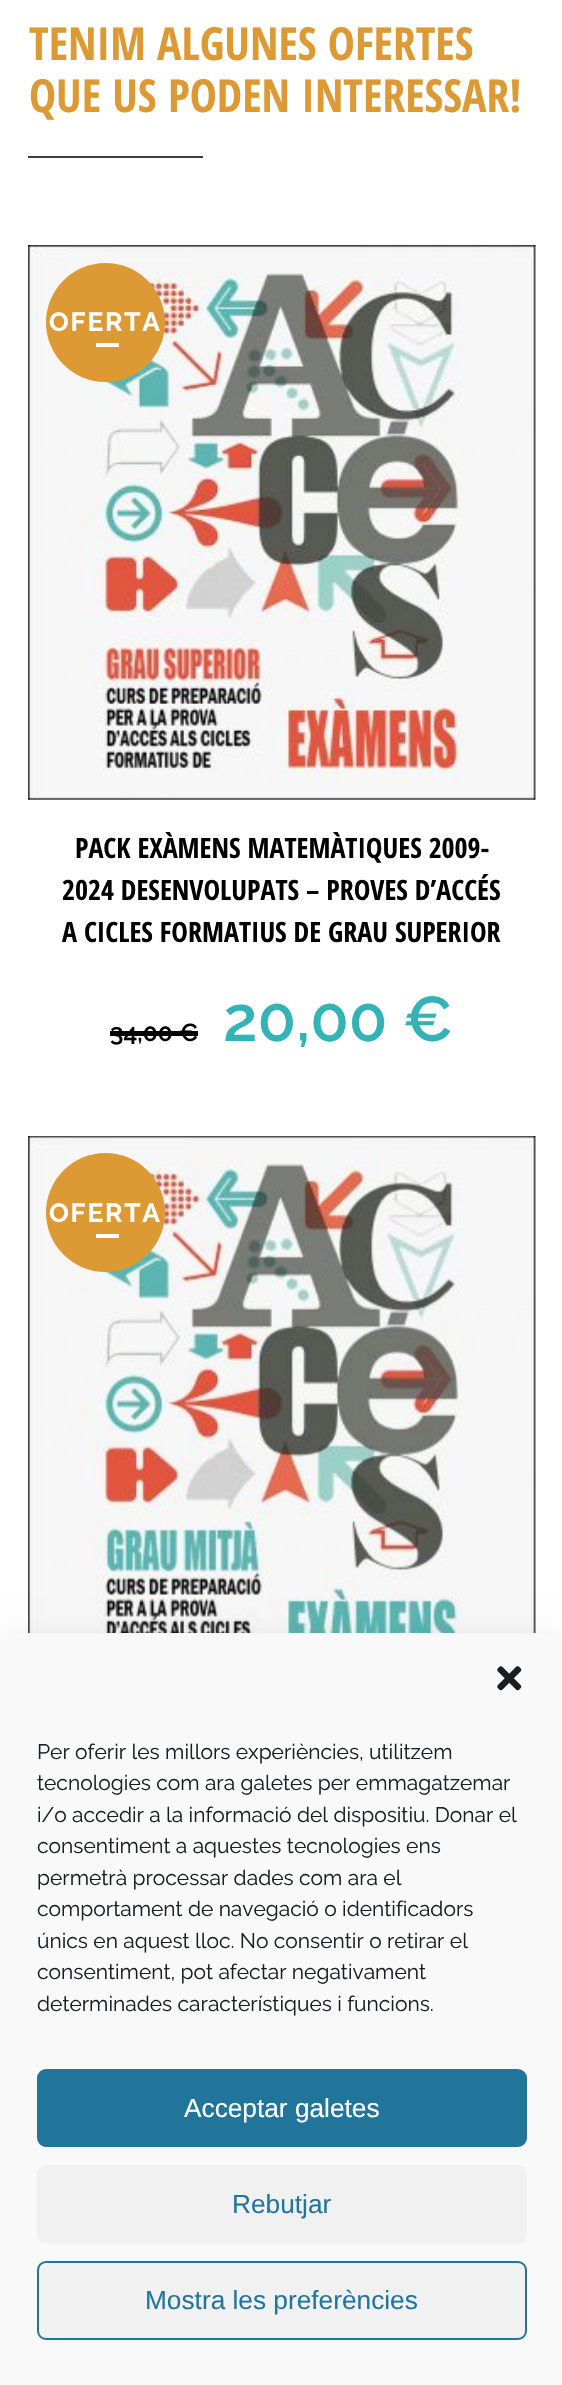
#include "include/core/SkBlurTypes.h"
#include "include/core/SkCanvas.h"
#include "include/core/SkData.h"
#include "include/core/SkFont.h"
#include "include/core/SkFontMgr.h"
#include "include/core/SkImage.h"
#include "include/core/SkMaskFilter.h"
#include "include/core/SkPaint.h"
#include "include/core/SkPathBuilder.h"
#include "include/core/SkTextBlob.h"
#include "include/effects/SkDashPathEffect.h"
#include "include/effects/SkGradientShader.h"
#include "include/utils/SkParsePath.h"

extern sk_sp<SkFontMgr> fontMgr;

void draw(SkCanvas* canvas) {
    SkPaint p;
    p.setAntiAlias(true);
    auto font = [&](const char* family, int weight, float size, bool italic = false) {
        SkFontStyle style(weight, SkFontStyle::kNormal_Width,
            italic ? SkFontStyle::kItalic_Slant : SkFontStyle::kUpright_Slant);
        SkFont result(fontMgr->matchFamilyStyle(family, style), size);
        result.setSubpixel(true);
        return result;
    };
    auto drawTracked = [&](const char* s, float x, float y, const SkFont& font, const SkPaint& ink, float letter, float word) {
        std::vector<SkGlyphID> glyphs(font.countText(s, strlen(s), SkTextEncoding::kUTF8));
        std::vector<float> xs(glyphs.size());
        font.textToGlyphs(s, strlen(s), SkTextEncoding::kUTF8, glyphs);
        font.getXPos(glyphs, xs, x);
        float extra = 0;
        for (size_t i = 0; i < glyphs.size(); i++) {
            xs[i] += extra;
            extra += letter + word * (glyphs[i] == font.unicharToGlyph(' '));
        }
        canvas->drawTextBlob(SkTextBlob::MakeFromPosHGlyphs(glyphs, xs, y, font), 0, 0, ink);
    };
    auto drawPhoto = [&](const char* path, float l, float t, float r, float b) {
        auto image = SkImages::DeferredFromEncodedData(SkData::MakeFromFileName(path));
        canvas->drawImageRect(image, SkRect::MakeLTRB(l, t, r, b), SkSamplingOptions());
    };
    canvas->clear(0xFFFFFFFF);
    auto font1 = font("Open Sans Condensed", 700, 45.5f);
    p.setColor(0xFFDD9933);
    canvas->drawString("TENIM ALGUNES OFERTES", 29, 60, font1, p);
    canvas->drawString("QUE US PODEN INTERESSAR!", 29, 112, font1, p);
    p.setColor(0xFF3D3D3D);
    canvas->drawRect(SkRect::MakeLTRB(28, 156, 203, 158), p);
    drawPhoto("media/1.png", 28, 245, 536, 800);
    p.setColor(0xFFDD9933);
    canvas->drawCircle(105.5f, 322.5f, 59.5f, p);
    auto font2 = font("Raleway", 700, 26.25f);
    p.setColor(0xFFFFFFFF);
    drawTracked("OFERTA", 49, 331, font2, p, 1.75f, 0);
    canvas->drawRect(SkRect::MakeLTRB(96, 343, 119, 347), p);
    auto font3 = font("Open Sans Condensed", 700, 28);
    p.setColor(0xFF000000);
    {
        const struct { const char* s; float x, y; } items[] = {
            {"PACK EXÀMENS MATEMÀTIQUES 2009-", 75, 858},
            {"2024 DESENVOLUPATS – PROVES D’ACCÉS", 62, 900},
            {"A CICLES FORMATIUS DE GRAU SUPERIOR", 62, 942},
        };
        for (auto [s, x, y] : items) {
            canvas->drawString(s, x, y, font3, p);
        }
    }
    auto font4 = font("Raleway", 600, 24.5f);
    canvas->drawString("34,00 €", 110, 1041, font4, p);
    canvas->drawRect(SkRect::MakeLTRB(110, 1031, 198, 1036), p);
    auto font5 = font("Raleway", 600, 63);
    p.setColor(0xFF33B3B6);
    canvas->drawString("20,00 €", 223, 1041, font5, p);
    drawPhoto("media/2.png", 28, 1136, 536, 1633);
    p.setColor(0xFFDD9933);
    canvas->drawCircle(105.5f, 1212.5f, 59.5f, p);
    p.setColor(0xFFFFFFFF);
    drawTracked("OFERTA", 49, 1222, font2, p, 1.75f, 0);
    canvas->drawRect(SkRect::MakeLTRB(96, 1234, 119, 1238), p);
    p.setColor(0x30000000);
    p.setMaskFilter(SkMaskFilter::MakeBlur(kNormal_SkBlurStyle, 17.5f));
    canvas->drawRect(SkRect::MakeLTRB(0, 1650, 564, 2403), p);
    p.setMaskFilter(nullptr);
    p.setColor(0xFFF9F9F9);
    canvas->drawRect(SkRect::MakeLTRB(0, 1634, 562, 2385), p);
    drawPhoto("media/3.png", 497, 1666, 522, 1691);
    auto font6 = font("Raleway", 400, 21);
    p.setColor(0xFF191E23);
    {
        const struct { const char* s; float x, y; } items[] = {
            {"Per oferir les millors experiències, utilitzem", 37, 1759},
            {"tecnologies com ara galetes per emmagatzemar", 37, 1790},
            {"i/o accedir a la informació del dispositiu. Donar el", 37, 1822},
            {"consentiment a aquestes tecnologies ens", 37, 1853},
            {"permetrà processar dades com ara el", 37, 1885},
            {"comportament de navegació o identificadors", 37, 1916},
            {"únics en aquest lloc. No consentir o retirar el", 37, 1948},
            {"consentiment, pot afectar negativament", 37, 1979},
            {"determinades característiques i funcions.", 37, 2011},
        };
        for (auto [s, x, y] : items) {
            canvas->drawString(s, x, y, font6, p);
        }
    }
    p.setColor(0xFF21759B);
    canvas->drawRoundRect(SkRect::MakeLTRB(38, 2070, 526, 2146), 8, 8, p);
    p.setStyle(SkPaint::kStroke_Style);
    p.setStrokeWidth(2);
    canvas->drawRoundRect(SkRect::MakeLTRB(38, 2070, 526, 2146), 8, 8, p);
    auto font7 = font("Liberation Sans", 400, 26.25f);
    p.setStyle(SkPaint::kFill_Style);
    p.setColor(0xFFFFFFFF);
    canvas->drawString("Acceptar galetes", 184, 2117, font7, p);
    p.setColor(0xFFF1F1F1);
    canvas->drawRoundRect(SkRect::MakeLTRB(37, 2165, 527, 2244), 9, 9, p);
    p.setColor(0xFF21759B);
    canvas->drawString("Rebutjar", 232, 2213, font7, p);
    p.setColor(0xFFF1F1F1);
    canvas->drawRoundRect(SkRect::MakeLTRB(38, 2262, 526, 2339), 8, 8, p);
    p.setStyle(SkPaint::kStroke_Style);
    p.setColor(0xFF21759B);
    canvas->drawRoundRect(SkRect::MakeLTRB(38, 2262, 526, 2339), 8, 8, p);
    p.setStyle(SkPaint::kFill_Style);
    canvas->drawString("Mostra les preferències", 145, 2309, font7, p);
}
